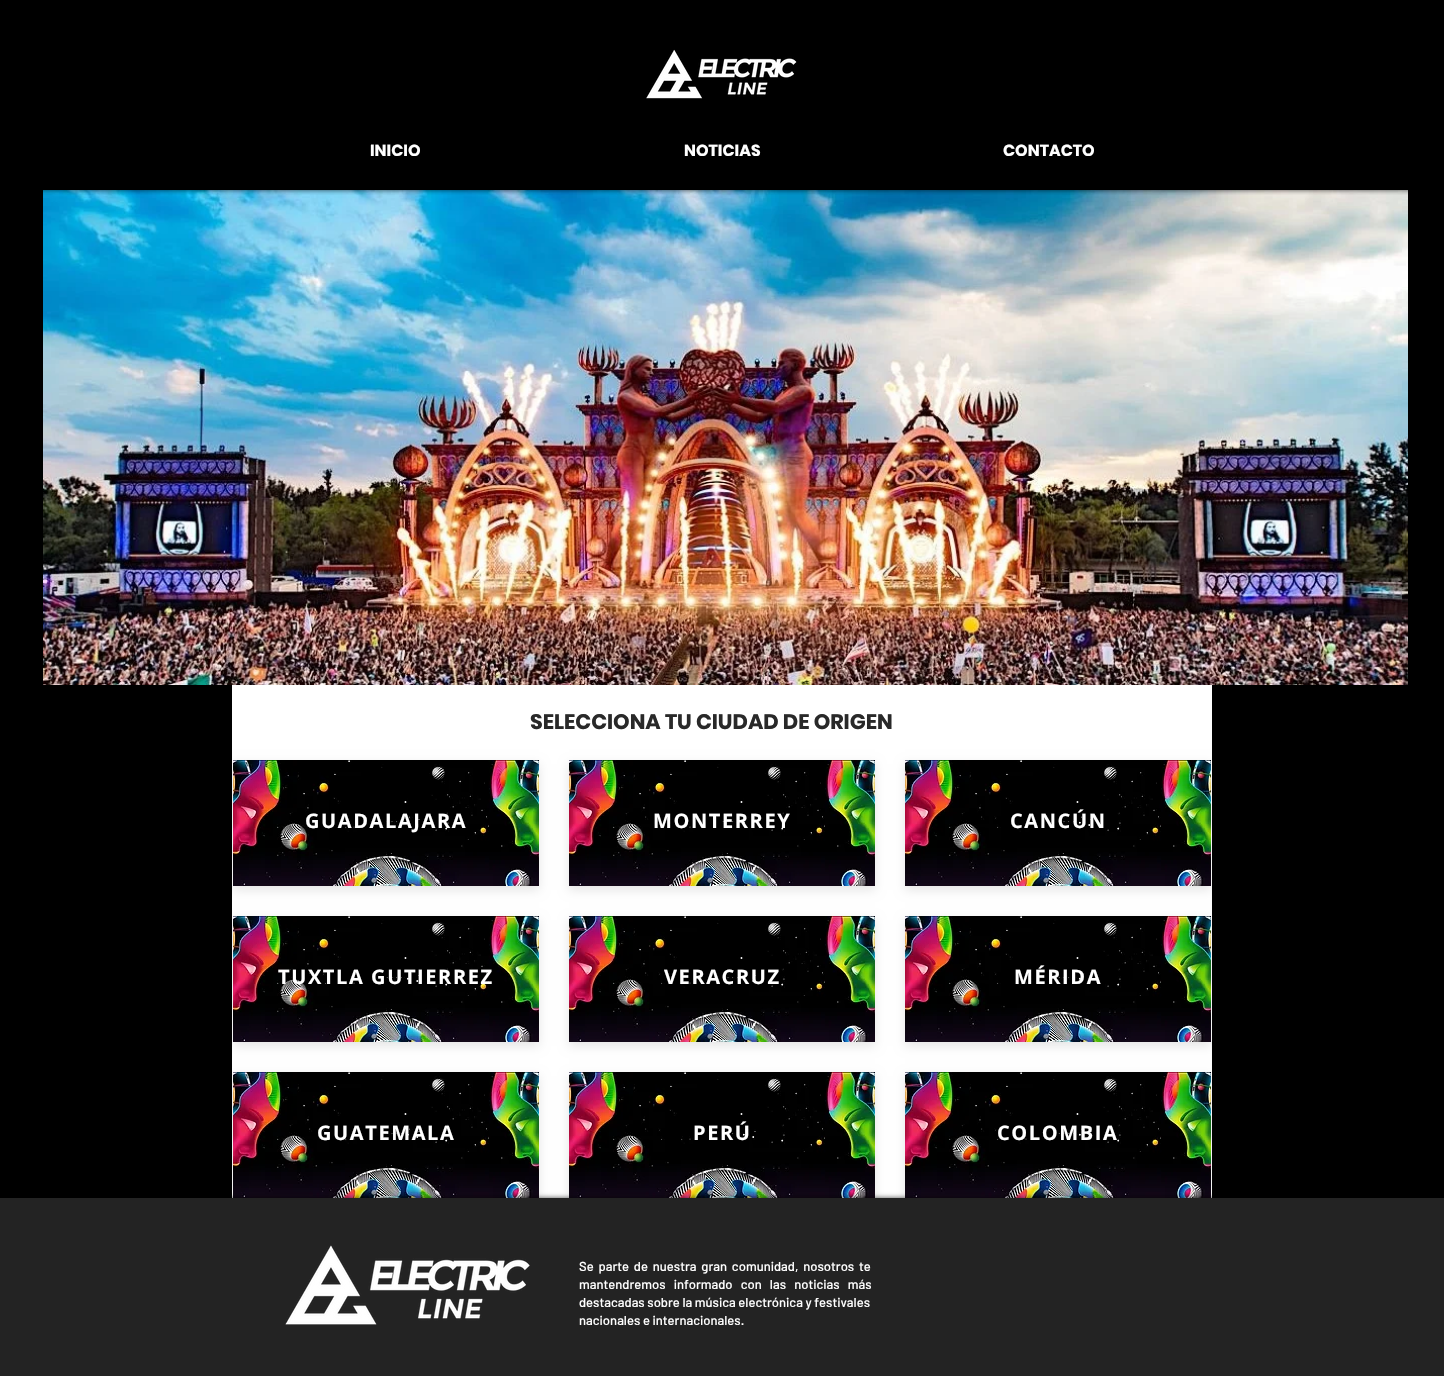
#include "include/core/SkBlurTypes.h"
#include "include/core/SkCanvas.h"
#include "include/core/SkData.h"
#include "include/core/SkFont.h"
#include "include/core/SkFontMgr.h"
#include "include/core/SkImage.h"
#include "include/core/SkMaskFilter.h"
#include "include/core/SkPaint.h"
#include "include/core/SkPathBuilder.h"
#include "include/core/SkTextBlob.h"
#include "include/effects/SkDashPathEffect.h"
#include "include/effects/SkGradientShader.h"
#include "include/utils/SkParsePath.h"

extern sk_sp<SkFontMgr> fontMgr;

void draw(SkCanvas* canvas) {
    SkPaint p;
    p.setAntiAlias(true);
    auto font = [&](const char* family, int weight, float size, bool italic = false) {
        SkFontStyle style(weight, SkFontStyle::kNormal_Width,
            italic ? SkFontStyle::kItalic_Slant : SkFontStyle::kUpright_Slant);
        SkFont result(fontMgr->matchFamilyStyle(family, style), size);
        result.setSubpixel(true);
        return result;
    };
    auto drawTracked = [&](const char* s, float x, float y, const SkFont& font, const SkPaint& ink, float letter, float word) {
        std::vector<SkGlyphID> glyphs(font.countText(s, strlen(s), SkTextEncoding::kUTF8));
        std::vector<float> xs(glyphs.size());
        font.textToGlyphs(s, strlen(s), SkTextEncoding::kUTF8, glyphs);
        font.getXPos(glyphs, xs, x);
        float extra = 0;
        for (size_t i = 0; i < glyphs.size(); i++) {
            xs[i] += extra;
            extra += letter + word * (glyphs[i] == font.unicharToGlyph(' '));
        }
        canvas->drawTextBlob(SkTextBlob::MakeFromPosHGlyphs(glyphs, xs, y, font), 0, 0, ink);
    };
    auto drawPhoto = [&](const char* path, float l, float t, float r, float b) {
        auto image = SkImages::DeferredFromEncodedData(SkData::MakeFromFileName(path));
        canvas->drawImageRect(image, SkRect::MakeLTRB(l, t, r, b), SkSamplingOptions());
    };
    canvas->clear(0xFF000000);
    drawPhoto("media/2.png", 43, 190, 1408, 685);
    canvas->save();
    canvas->clipRect(SkRect::MakeLTRB(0, 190, 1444, 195));
    p.setColor(0xB3000000);
    p.setMaskFilter(SkMaskFilter::MakeBlur(kNormal_SkBlurStyle, 2.5f));
    canvas->drawRect(SkRect::MakeLTRB(0, 0, 1444, 190), p);
    p.setMaskFilter(nullptr);
    canvas->restore();
    drawPhoto("media/1.png", 646, 49, 797, 99);
    auto font1 = font("Poppins", 700, 16);
    p.setColor(0xFFFFFFFF);
    {
        const struct { const char* s; float x, y; } items[] = {
            {"INICIO", 370, 156},
            {"NOTICIAS", 684, 156},
            {"CONTACTO", 1003, 156},
        };
        for (auto [s, x, y] : items) {
            canvas->drawString(s, x, y, font1, p);
        }
    }
    canvas->drawRect(SkRect::MakeLTRB(232, 685, 1212, 1198), p);
    auto font2 = font("Poppins", 700, 21);
    p.setColor(0xFF292929);
    canvas->drawString("SELECCIONA TU CIUDAD DE ORIGEN", 530, 729, font2, p);
    p.setColor(0x1A000000);
    p.setMaskFilter(SkMaskFilter::MakeBlur(kNormal_SkBlurStyle, 5));
    canvas->drawRect(SkRect::MakeLTRB(233, 764, 539, 890), p);
    p.setMaskFilter(nullptr);
    drawPhoto("media/3.png", 233, 760, 539, 886);
    auto font3 = font("Open Sans", 700, 20);
    p.setColor(0xFFFFFFFF);
    drawTracked("GUADALAJARA", 305, 828, font3, p, 1.6f, 0);
    p.setColor(0x1A000000);
    p.setMaskFilter(SkMaskFilter::MakeBlur(kNormal_SkBlurStyle, 5));
    canvas->drawRect(SkRect::MakeLTRB(233, 920, 539, 1046), p);
    p.setMaskFilter(nullptr);
    drawPhoto("media/3.png", 233, 916, 539, 1042);
    p.setColor(0xFFFFFFFF);
    drawTracked("TUXTLA GUTIERREZ", 278, 984, font3, p, 1.6f, 0);
    p.setColor(0x1A000000);
    p.setMaskFilter(SkMaskFilter::MakeBlur(kNormal_SkBlurStyle, 5));
    canvas->drawRect(SkRect::MakeLTRB(233, 1076, 539, 1202), p);
    p.setMaskFilter(nullptr);
    drawPhoto("media/3.png", 233, 1072, 539, 1198);
    p.setColor(0xFFFFFFFF);
    drawTracked("GUATEMALA", 317, 1140, font3, p, 1.6f, 0);
    p.setColor(0x1A000000);
    p.setMaskFilter(SkMaskFilter::MakeBlur(kNormal_SkBlurStyle, 5));
    canvas->drawRect(SkRect::MakeLTRB(569, 764, 875, 890), p);
    p.setMaskFilter(nullptr);
    drawPhoto("media/3.png", 569, 760, 875, 886);
    p.setColor(0xFFFFFFFF);
    drawTracked("MONTERREY", 653, 828, font3, p, 1.6f, 0);
    p.setColor(0x1A000000);
    p.setMaskFilter(SkMaskFilter::MakeBlur(kNormal_SkBlurStyle, 5));
    canvas->drawRect(SkRect::MakeLTRB(569, 920, 875, 1046), p);
    p.setMaskFilter(nullptr);
    drawPhoto("media/3.png", 569, 916, 875, 1042);
    p.setColor(0xFFFFFFFF);
    drawTracked("VERACRUZ", 664, 984, font3, p, 1.6f, 0);
    p.setColor(0x1A000000);
    p.setMaskFilter(SkMaskFilter::MakeBlur(kNormal_SkBlurStyle, 5));
    canvas->drawRect(SkRect::MakeLTRB(569, 1076, 875, 1202), p);
    p.setMaskFilter(nullptr);
    drawPhoto("media/3.png", 569, 1072, 875, 1198);
    p.setColor(0xFFFFFFFF);
    drawTracked("PERÚ", 693, 1140, font3, p, 1.6f, 0);
    p.setColor(0x1A000000);
    p.setMaskFilter(SkMaskFilter::MakeBlur(kNormal_SkBlurStyle, 5));
    canvas->drawRect(SkRect::MakeLTRB(905, 764, 1211, 890), p);
    p.setMaskFilter(nullptr);
    drawPhoto("media/3.png", 905, 760, 1211, 886);
    p.setColor(0xFFFFFFFF);
    drawTracked("CANCÚN", 1010, 828, font3, p, 1.6f, 0);
    p.setColor(0x1A000000);
    p.setMaskFilter(SkMaskFilter::MakeBlur(kNormal_SkBlurStyle, 5));
    canvas->drawRect(SkRect::MakeLTRB(905, 920, 1211, 1046), p);
    p.setMaskFilter(nullptr);
    drawPhoto("media/3.png", 905, 916, 1211, 1042);
    p.setColor(0xFFFFFFFF);
    drawTracked("MÉRIDA", 1014, 984, font3, p, 1.6f, 0);
    p.setColor(0x1A000000);
    p.setMaskFilter(SkMaskFilter::MakeBlur(kNormal_SkBlurStyle, 5));
    canvas->drawRect(SkRect::MakeLTRB(905, 1076, 1211, 1202), p);
    p.setMaskFilter(nullptr);
    drawPhoto("media/3.png", 905, 1072, 1211, 1198);
    p.setColor(0xFFFFFFFF);
    drawTracked("COLOMBIA", 997, 1140, font3, p, 1.6f, 0);
    p.setColor(0xB3000000);
    p.setMaskFilter(SkMaskFilter::MakeBlur(kNormal_SkBlurStyle, 2.5f));
    canvas->drawRect(SkRect::MakeLTRB(0, 1198, 1444, 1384), p);
    p.setMaskFilter(nullptr);
    p.setColor(0xFF232323);
    canvas->drawRect(SkRect::MakeLTRB(0, 1198, 1444, 1376), p);
    drawPhoto("media/4.png", 285, 1245, 530, 1325);
    auto font4 = font("Barlow", 500, 13);
    p.setColor(0xFFFFFFFF);
    drawTracked("Se parte de nuestra gran comunidad, nosotros te", 579, 1271, font4, p, 0, 2.25f);
    drawTracked("mantendremos informado con las noticias más", 579, 1289, font4, p, 0, 5.5f);
    canvas->drawString("destacadas sobre la música electrónica y festivales", 579, 1307, font4, p);
    canvas->drawString("nacionales e internacionales.", 579, 1325, font4, p);
}
